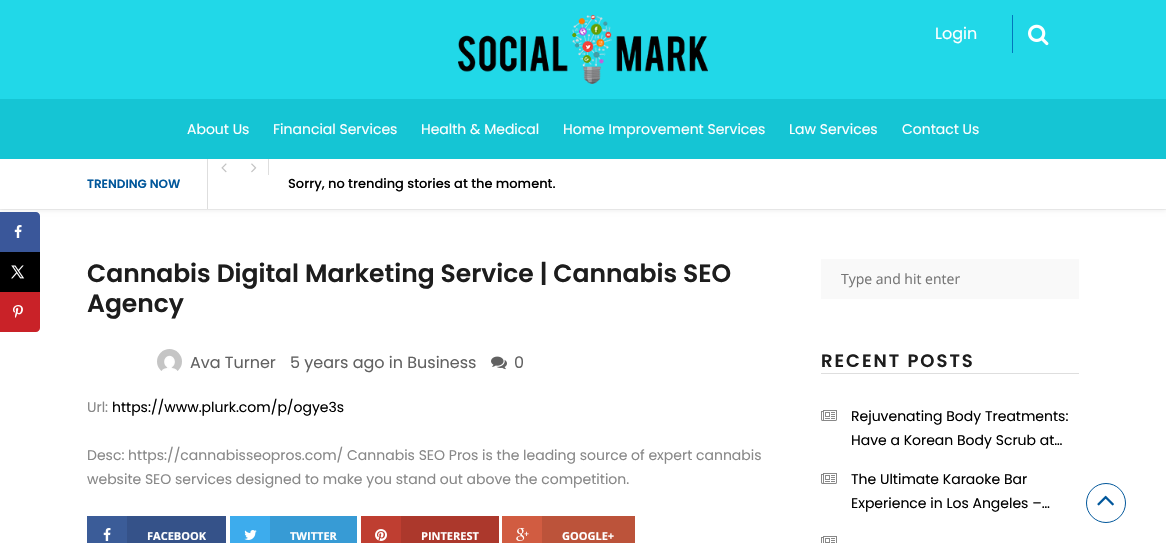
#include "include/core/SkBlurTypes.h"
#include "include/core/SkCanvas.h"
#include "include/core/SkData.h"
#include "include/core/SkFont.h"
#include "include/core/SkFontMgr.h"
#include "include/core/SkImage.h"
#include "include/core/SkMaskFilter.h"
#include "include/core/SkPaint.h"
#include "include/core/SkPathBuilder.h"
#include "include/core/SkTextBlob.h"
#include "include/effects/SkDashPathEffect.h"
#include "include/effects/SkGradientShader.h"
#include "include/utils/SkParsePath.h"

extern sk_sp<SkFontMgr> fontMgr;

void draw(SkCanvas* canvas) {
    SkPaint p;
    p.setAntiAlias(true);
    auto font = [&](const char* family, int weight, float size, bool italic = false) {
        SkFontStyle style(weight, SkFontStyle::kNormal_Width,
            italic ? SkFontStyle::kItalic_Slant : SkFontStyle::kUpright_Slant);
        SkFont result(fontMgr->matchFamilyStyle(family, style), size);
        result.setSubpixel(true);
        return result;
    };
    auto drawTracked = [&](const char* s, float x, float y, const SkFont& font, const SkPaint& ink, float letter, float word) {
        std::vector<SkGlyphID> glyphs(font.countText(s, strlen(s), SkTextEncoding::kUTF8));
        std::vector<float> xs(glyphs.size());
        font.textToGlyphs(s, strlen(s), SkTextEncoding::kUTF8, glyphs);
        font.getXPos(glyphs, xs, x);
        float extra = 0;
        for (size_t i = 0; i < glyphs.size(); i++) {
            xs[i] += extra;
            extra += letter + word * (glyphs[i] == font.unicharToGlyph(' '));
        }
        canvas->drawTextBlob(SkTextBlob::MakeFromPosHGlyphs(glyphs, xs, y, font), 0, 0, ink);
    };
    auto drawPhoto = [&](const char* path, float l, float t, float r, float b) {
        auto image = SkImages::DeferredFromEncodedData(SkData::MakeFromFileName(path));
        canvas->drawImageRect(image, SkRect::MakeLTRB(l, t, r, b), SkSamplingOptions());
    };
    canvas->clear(0xFFFFFFFF);
    p.setColor(0x0F000000);
    p.setMaskFilter(SkMaskFilter::MakeBlur(kNormal_SkBlurStyle, 2));
    canvas->drawRect(SkRect::MakeLTRB(0, 2, 1166, 211), p);
    p.setMaskFilter(nullptr);
    p.setColor(0x0D000000);
    canvas->drawRect(SkRect::MakeLTRB(0, 209, 1166, 210), p);
    p.setColor(0xFF21D8E8);
    canvas->drawRect(SkRect::MakeLTRB(0, 0, 1166, 99), p);
    drawPhoto("media/1.png", 458, 15, 708, 84);
    auto font1 = font("Poppins", 400, 16);
    p.setColor(0xFFFFFFFF);
    canvas->drawString("Login", 935, 39, font1, p);
    p.setColor(0xFF0277BD);
    canvas->drawRect(SkRect::MakeLTRB(1012, 15, 1013, 53), p);
    drawPhoto("media/2.png", 1028, 24, 1049, 46);
    p.setColor(0xFF15C5D4);
    canvas->drawRect(SkRect::MakeLTRB(0, 99, 1166, 159), p);
    auto font2 = font("Poppins", 400, 14);
    p.setColor(0xFFFFFFFF);
    {
        const struct { const char* s; float x, y; } items[] = {
            {"About Us", 187, 134},
            {"Financial Services", 273, 134},
            {"Health & Medical", 421, 134},
            {"Home Improvement Services", 563, 134},
            {"Law Services", 789, 134},
            {"Contact Us", 902, 134},
        };
        for (auto [s, x, y] : items) {
            canvas->drawString(s, x, y, font2, p);
        }
    }
    canvas->drawRect(SkRect::MakeLTRB(0, 159, 1166, 209), p);
    auto font3 = font("Poppins", 600, 12);
    p.setColor(0xFF01579B);
    canvas->drawString("TRENDING NOW", 87, 188, font3, p);
    p.setColor(0xFFDEDEDE);
    canvas->drawRect(SkRect::MakeLTRB(207, 159, 208, 209), p);
    canvas->drawRect(SkRect::MakeLTRB(268, 159, 269, 175), p);
    drawPhoto("media/3.png", 221, 163, 227, 173);
    drawPhoto("media/4.png", 251, 163, 257, 173);
    auto font4 = font("Poppins", 500, 13);
    p.setColor(0xFF000000);
    canvas->drawString("Sorry, no trending stories at the moment.", 288, 188, font4, p);
    p.setColor(0xFF3A579A);
    canvas->drawPath(SkPathBuilder().moveTo(1, 213).lineTo(36, 213).cubicTo(37.5f, 213, 39, 214.5f, 39, 216).lineTo(39, 251).lineTo(1, 251).close().detach(), p);
    p.setStyle(SkPaint::kStroke_Style);
    p.setStrokeWidth(2);
    canvas->drawPath(SkPathBuilder().moveTo(1, 213).lineTo(36, 213).cubicTo(37.5f, 213, 39, 214.5f, 39, 216).lineTo(39, 251).lineTo(1, 251).close().detach(), p);
    drawPhoto("media/5.png", 14, 225, 22, 238);
    p.setStyle(SkPaint::kFill_Style);
    p.setColor(0xFF000000);
    canvas->drawRect(SkRect::MakeLTRB(0, 252, 40, 292), p);
    drawPhoto("media/6.png", 11, 265, 25, 279);
    p.setColor(0xFFC92228);
    canvas->drawPath(SkPathBuilder().moveTo(1, 293).lineTo(39, 293).lineTo(39, 328).cubicTo(39, 329.5f, 37.5f, 331, 36, 331).lineTo(1, 331).close().detach(), p);
    p.setStyle(SkPaint::kStroke_Style);
    canvas->drawPath(SkPathBuilder().moveTo(1, 293).lineTo(39, 293).lineTo(39, 328).cubicTo(39, 329.5f, 37.5f, 331, 36, 331).lineTo(1, 331).close().detach(), p);
    drawPhoto("media/7.png", 13, 305, 23, 318);
    auto font5 = font("Poppins", 600, 25);
    p.setStyle(SkPaint::kFill_Style);
    p.setColor(0xFF1D1D1D);
    canvas->drawString("Cannabis Digital Marketing Service | Cannabis SEO", 87, 282, font5, p);
    canvas->drawString("Agency", 87, 312, font5, p);
    drawPhoto("media/8.png", 157, 349, 182, 371);
    p.setColor(0xFF616161);
    canvas->drawString("Ava Turner", 190, 368, font1, p);
    canvas->drawString("5 years ago in Business", 290, 368, font1, p);
    drawPhoto("media/9.png", 491, 356, 507, 370);
    canvas->drawString("0", 514, 368, font1, p);
    p.setColor(0xFF888888);
    canvas->drawString("Url:", 87, 412, font2, p);
    p.setColor(0xFF000000);
    canvas->drawString("https://www.plurk.com/p/ogye3s", 112, 412, font2, p);
    p.setColor(0xFF888888);
    canvas->drawString("Desc: https://cannabisseopros.com/ Cannabis SEO Pros is the leading source of expert cannabis", 87, 460, font2, p);
    canvas->drawString("website SEO services designed to make you stand out above the competition.", 87, 484, font2, p);
    p.setColor(0xFF3B5C98);
    canvas->drawRect(SkRect::MakeLTRB(87, 516, 127, 543), p);
    drawPhoto("media/10.png", 103, 528, 111, 541);
    p.setColor(0xFF355289);
    canvas->drawRect(SkRect::MakeLTRB(127, 516, 226, 543), p);
    auto font6 = font("Open Sans", 700, 11);
    p.setColor(0xFFFFFFFF);
    canvas->drawString("FACEBOOK", 147, 540, font6, p);
    p.setColor(0xFF3DACED);
    canvas->drawRect(SkRect::MakeLTRB(230, 516, 270, 543), p);
    drawPhoto("media/11.png", 244, 530, 257, 540);
    p.setColor(0xFF379BD5);
    canvas->drawRect(SkRect::MakeLTRB(270, 516, 357, 543), p);
    p.setColor(0xFFFFFFFF);
    canvas->drawString("TWITTER", 290, 540, font6, p);
    p.setColor(0xFFBF3E31);
    canvas->drawRect(SkRect::MakeLTRB(361, 516, 401, 543), p);
    drawPhoto("media/12.png", 375, 529, 387, 541);
    p.setColor(0xFFAC382C);
    canvas->drawRect(SkRect::MakeLTRB(401, 516, 499, 543), p);
    p.setColor(0xFFFFFFFF);
    canvas->drawString("PINTEREST", 421, 540, font6, p);
    p.setColor(0xFFD15C41);
    canvas->drawRect(SkRect::MakeLTRB(502, 516, 542, 543), p);
    drawPhoto("media/13.png", 516, 528, 529, 541);
    p.setColor(0xFFBC533A);
    canvas->drawRect(SkRect::MakeLTRB(542, 516, 635, 543), p);
    p.setColor(0xFFFFFFFF);
    canvas->drawString("GOOGLE+", 562, 540, font6, p);
    p.setColor(0xFFF9F9F9);
    canvas->drawRect(SkRect::MakeLTRB(821, 259, 1079, 299), p);
    auto font7 = font("Open Sans", 400, 14);
    p.setColor(0xFF757575);
    canvas->drawString("Type and hit enter", 841, 284, font7, p);
    p.setColor(0xFFDEDEDE);
    canvas->drawRect(SkRect::MakeLTRB(821, 373, 1079, 374), p);
    auto font8 = font("Poppins", 600, 18);
    p.setColor(0xFF1D1D1D);
    drawTracked("RECENT POSTS", 821, 367, font8, p, 2, 0);
    drawPhoto("media/14.png", 821, 410, 837, 421);
    p.setColor(0xFF000000);
    canvas->drawString("Rejuvenating Body Treatments:", 851, 421, font2, p);
    canvas->drawString("Have a Korean Body Scrub at…", 851, 445, font2, p);
    drawPhoto("media/14.png", 821, 473, 837, 484);
    canvas->drawString("The Ultimate Karaoke Bar", 851, 484, font2, p);
    canvas->drawString("Experience in Los Angeles –…", 851, 508, font2, p);
    drawPhoto("media/15.png", 821, 536, 837, 543);
    p.setStyle(SkPaint::kStroke_Style);
    p.setStrokeWidth(1);
    p.setColor(0xFF01579B);
    canvas->drawCircle(1106, 503, 19.5f, p);
    drawPhoto("media/16.png", 1097, 495, 1114, 506);
}
